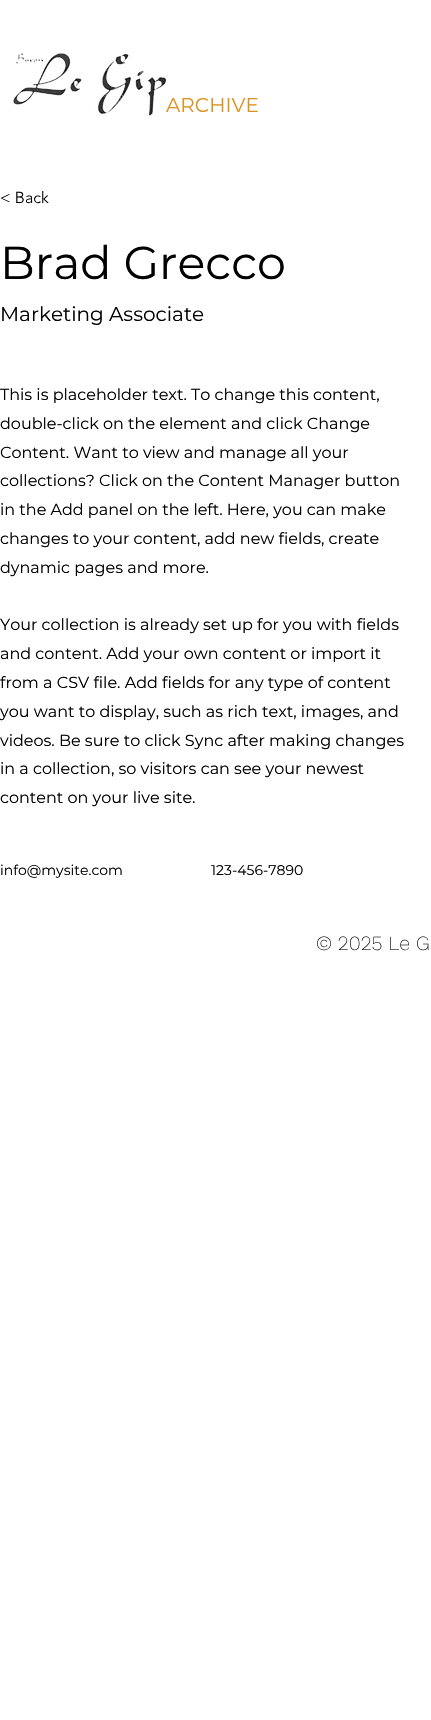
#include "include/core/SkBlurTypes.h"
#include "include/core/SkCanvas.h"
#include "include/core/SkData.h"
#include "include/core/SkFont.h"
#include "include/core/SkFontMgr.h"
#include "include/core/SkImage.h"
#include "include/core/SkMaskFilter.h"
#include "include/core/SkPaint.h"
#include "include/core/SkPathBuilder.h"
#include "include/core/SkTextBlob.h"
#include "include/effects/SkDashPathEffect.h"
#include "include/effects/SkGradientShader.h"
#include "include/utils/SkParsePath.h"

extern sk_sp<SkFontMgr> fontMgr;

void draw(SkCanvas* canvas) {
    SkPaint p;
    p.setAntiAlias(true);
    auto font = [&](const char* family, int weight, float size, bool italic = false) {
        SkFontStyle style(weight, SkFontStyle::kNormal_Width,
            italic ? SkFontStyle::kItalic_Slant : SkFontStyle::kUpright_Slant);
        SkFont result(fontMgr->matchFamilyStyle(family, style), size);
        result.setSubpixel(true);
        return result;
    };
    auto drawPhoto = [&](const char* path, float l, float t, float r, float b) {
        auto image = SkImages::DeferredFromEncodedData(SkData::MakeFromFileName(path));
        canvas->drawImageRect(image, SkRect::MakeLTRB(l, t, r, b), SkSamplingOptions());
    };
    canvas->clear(0xFFFFFFFF);
    drawPhoto("media/1.png", 13, 53, 167, 116);
    auto font1 = font("Montserrat", 400, 20);
    p.setColor(0xFFDB9421);
    canvas->drawString("ARCHIVE", 166, 112, font1, p);
    auto font2 = font("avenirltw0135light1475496", 300, 16);
    p.setColor(0xFF000000);
    canvas->drawString("< Back", 0, 203, font2, p);
    auto font3 = font("Montserrat", 400, 46);
    canvas->drawString("Brad Grecco", 0, 279, font3, p);
    canvas->drawString("Marketing Associate", 0, 321, font1, p);
    auto font4 = font("Montserrat", 400, 16);
    {
        const struct { const char* s; float x, y; } items[] = {
            {"This is placeholder text. To change this content,", 0, 400},
            {"double-click on the element and click Change", 0, 429},
            {"Content. Want to view and manage all your", 0, 458},
            {"collections? Click on the Content Manager button", 0, 486},
            {"in the Add panel on the left. Here, you can make", 0, 515},
            {"changes to your content, add new fields, create", 0, 544},
            {"dynamic pages and more.", 0, 573},
            {"Your collection is already set up for you with fields", 0, 630},
            {"and content. Add your own content or import it", 0, 659},
            {"from a CSV file. Add fields for any type of content", 0, 688},
            {"you want to display, such as rich text, images, and", 0, 717},
            {"videos. Be sure to click Sync after making changes", 0, 746},
            {"in a collection, so visitors can see your newest", 0, 774},
            {"content on your live site.", 0, 803},
        };
        for (auto [s, x, y] : items) {
            canvas->drawString(s, x, y, font4, p);
        }
    }
    auto font5 = font("Montserrat", 400, 14);
    canvas->drawString("info@mysite.com", 0, 875, font5, p);
    canvas->drawString("123-456-7890", 211, 875, font5, p);
    auto font6 = font("Work Sans", 200, 20);
    canvas->drawString("© 2025 Le G", 316, 950, font6, p);
}
